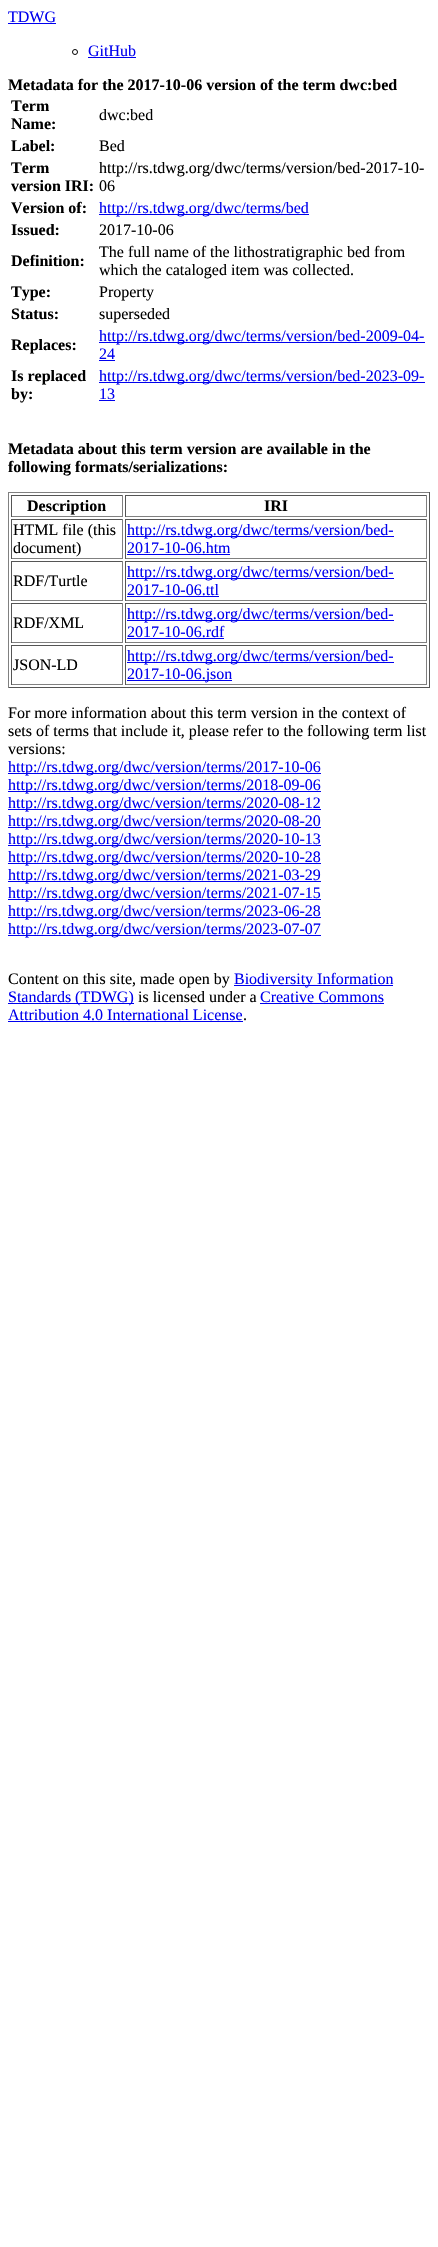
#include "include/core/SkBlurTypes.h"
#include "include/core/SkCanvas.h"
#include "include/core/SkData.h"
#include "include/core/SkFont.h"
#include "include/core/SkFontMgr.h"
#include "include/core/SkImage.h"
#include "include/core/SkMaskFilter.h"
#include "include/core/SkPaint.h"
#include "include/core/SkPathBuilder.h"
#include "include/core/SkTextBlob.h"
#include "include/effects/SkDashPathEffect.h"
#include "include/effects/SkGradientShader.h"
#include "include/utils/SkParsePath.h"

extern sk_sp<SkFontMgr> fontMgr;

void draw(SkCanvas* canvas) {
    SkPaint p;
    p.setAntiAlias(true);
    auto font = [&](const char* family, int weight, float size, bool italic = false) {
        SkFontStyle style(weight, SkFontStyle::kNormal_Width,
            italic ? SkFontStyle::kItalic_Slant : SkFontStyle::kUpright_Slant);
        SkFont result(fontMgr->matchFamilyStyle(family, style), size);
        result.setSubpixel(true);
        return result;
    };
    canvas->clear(0xFFFFFFFF);
    auto font1 = font("Liberation Serif", 400, 16);
    p.setColor(0xFF0000EE);
    canvas->drawString("TDWG", 8, 22, font1, p);
    canvas->drawRect(SkRect::MakeLTRB(8, 23, 56, 24), p);
    p.setStyle(SkPaint::kStroke_Style);
    p.setStrokeWidth(1);
    p.setColor(0xFF000000);
    canvas->drawCircle(75, 52, 2.5f, p);
    p.setStyle(SkPaint::kFill_Style);
    p.setColor(0xFF0000EE);
    canvas->drawString("GitHub", 88, 56, font1, p);
    canvas->drawRect(SkRect::MakeLTRB(88, 57, 136, 58), p);
    auto font2 = font("Liberation Serif", 700, 16);
    p.setColor(0xFF000000);
    {
        const struct { const char* s; float x, y; } items[] = {
            {"Metadata for the 2017-10-06 version of the term dwc:bed", 8, 90},
            {"Term", 11, 111},
            {"Name:", 11, 129},
        };
        for (auto [s, x, y] : items) {
            canvas->drawString(s, x, y, font2, p);
        }
    }
    canvas->drawString("dwc:bed", 99, 120, font1, p);
    canvas->drawString("Label:", 11, 151, font2, p);
    canvas->drawString("Bed", 99, 151, font1, p);
    canvas->drawString("Term", 11, 173, font2, p);
    canvas->drawString("version IRI:", 11, 191, font2, p);
    canvas->drawString("http://rs.tdwg.org/dwc/terms/version/bed-2017-10-", 99, 173, font1, p);
    canvas->drawString("06", 99, 191, font1, p);
    canvas->drawString("Version of:", 11, 213, font2, p);
    p.setColor(0xFF0000EE);
    canvas->drawRect(SkRect::MakeLTRB(99, 214, 309, 215), p);
    canvas->drawString("http://rs.tdwg.org/dwc/terms/bed", 99, 213, font1, p);
    p.setColor(0xFF000000);
    canvas->drawString("Issued:", 11, 235, font2, p);
    canvas->drawString("2017-10-06", 99, 235, font1, p);
    canvas->drawString("Definition:", 11, 266, font2, p);
    canvas->drawString("The full name of the lithostratigraphic bed from", 99, 257, font1, p);
    canvas->drawString("which the cataloged item was collected.", 99, 275, font1, p);
    canvas->drawString("Type:", 11, 297, font2, p);
    canvas->drawString("Property", 99, 297, font1, p);
    canvas->drawString("Status:", 11, 319, font2, p);
    canvas->drawString("superseded", 99, 319, font1, p);
    canvas->drawString("Replaces:", 11, 350, font2, p);
    p.setColor(0xFF0000EE);
    canvas->drawRect(SkRect::MakeLTRB(99, 342, 425, 343), p);
    canvas->drawString("http://rs.tdwg.org/dwc/terms/version/bed-2009-04-", 99, 341, font1, p);
    canvas->drawString("24", 99, 359, font1, p);
    canvas->drawRect(SkRect::MakeLTRB(99, 360, 115, 361), p);
    p.setColor(0xFF000000);
    canvas->drawString("Is replaced", 11, 381, font2, p);
    canvas->drawString("by:", 11, 399, font2, p);
    p.setColor(0xFF0000EE);
    canvas->drawRect(SkRect::MakeLTRB(99, 382, 425, 383), p);
    canvas->drawString("http://rs.tdwg.org/dwc/terms/version/bed-2023-09-", 99, 381, font1, p);
    canvas->drawString("13", 99, 399, font1, p);
    canvas->drawRect(SkRect::MakeLTRB(99, 400, 115, 401), p);
    p.setColor(0xFF000000);
    canvas->drawString("Metadata about this term version are available in the", 8, 454, font2, p);
    canvas->drawString("following formats/serializations:", 8, 472, font2, p);
    {
        const struct { float l, t, r, b; SkColor color; } items[] = {
            {8, 492, 430, 493, 0xFF808080},
            {429, 492, 430, 688, 0xFF555555},
            {8, 687, 430, 688, 0xFF555555},
            {8, 492, 9, 688, 0xFF808080},
            {11, 495, 123, 496, 0xFF555555},
            {122, 495, 123, 517, 0xFF808080},
            {11, 516, 123, 517, 0xFF808080},
            {11, 495, 12, 517, 0xFF555555},
        };
        for (auto [l, t, r, b, color] : items) {
            p.setColor(color);
            canvas->drawRect(SkRect::MakeLTRB(l, t, r, b), p);
        }
    }
    p.setColor(0xFF000000);
    canvas->drawString("Description", 27, 511, font2, p);
    {
        const struct { float l, t, r, b; SkColor color; } items[] = {
            {125, 495, 427, 496, 0xFF555555},
            {426, 495, 427, 517, 0xFF808080},
            {125, 516, 427, 517, 0xFF808080},
            {125, 495, 126, 517, 0xFF555555},
        };
        for (auto [l, t, r, b, color] : items) {
            p.setColor(color);
            canvas->drawRect(SkRect::MakeLTRB(l, t, r, b), p);
        }
    }
    p.setColor(0xFF000000);
    canvas->drawString("IRI", 264, 511, font2, p);
    {
        const struct { float l, t, r, b; SkColor color; } items[] = {
            {11, 519, 123, 520, 0xFF555555},
            {122, 519, 123, 559, 0xFF808080},
            {11, 558, 123, 559, 0xFF808080},
            {11, 519, 12, 559, 0xFF555555},
        };
        for (auto [l, t, r, b, color] : items) {
            p.setColor(color);
            canvas->drawRect(SkRect::MakeLTRB(l, t, r, b), p);
        }
    }
    p.setColor(0xFF000000);
    canvas->drawString("HTML file (this", 13, 535, font1, p);
    canvas->drawString("document)", 13, 553, font1, p);
    {
        const struct { float l, t, r, b; SkColor color; } items[] = {
            {125, 519, 427, 520, 0xFF555555},
            {426, 519, 427, 559, 0xFF808080},
            {125, 558, 427, 559, 0xFF808080},
            {125, 519, 126, 559, 0xFF555555},
            {127, 536, 394, 537, 0xFF0000EE},
        };
        for (auto [l, t, r, b, color] : items) {
            p.setColor(color);
            canvas->drawRect(SkRect::MakeLTRB(l, t, r, b), p);
        }
    }
    canvas->drawString("http://rs.tdwg.org/dwc/terms/version/bed-", 127, 535, font1, p);
    canvas->drawString("2017-10-06.htm", 127, 553, font1, p);
    {
        const struct { float l, t, r, b; SkColor color; } items[] = {
            {127, 554, 230, 555, 0xFF0000EE},
            {11, 561, 123, 562, 0xFF555555},
            {122, 561, 123, 601, 0xFF808080},
            {11, 600, 123, 601, 0xFF808080},
            {11, 561, 12, 601, 0xFF555555},
        };
        for (auto [l, t, r, b, color] : items) {
            p.setColor(color);
            canvas->drawRect(SkRect::MakeLTRB(l, t, r, b), p);
        }
    }
    p.setColor(0xFF000000);
    canvas->drawString("RDF/Turtle", 13, 586, font1, p);
    {
        const struct { float l, t, r, b; SkColor color; } items[] = {
            {125, 561, 427, 562, 0xFF555555},
            {426, 561, 427, 601, 0xFF808080},
            {125, 600, 427, 601, 0xFF808080},
            {125, 561, 126, 601, 0xFF555555},
            {127, 578, 394, 579, 0xFF0000EE},
        };
        for (auto [l, t, r, b, color] : items) {
            p.setColor(color);
            canvas->drawRect(SkRect::MakeLTRB(l, t, r, b), p);
        }
    }
    canvas->drawString("http://rs.tdwg.org/dwc/terms/version/bed-", 127, 577, font1, p);
    canvas->drawString("2017-10-06.ttl", 127, 595, font1, p);
    {
        const struct { float l, t, r, b; SkColor color; } items[] = {
            {127, 596, 219, 597, 0xFF0000EE},
            {11, 603, 123, 604, 0xFF555555},
            {122, 603, 123, 643, 0xFF808080},
            {11, 642, 123, 643, 0xFF808080},
            {11, 603, 12, 643, 0xFF555555},
        };
        for (auto [l, t, r, b, color] : items) {
            p.setColor(color);
            canvas->drawRect(SkRect::MakeLTRB(l, t, r, b), p);
        }
    }
    p.setColor(0xFF000000);
    canvas->drawString("RDF/XML", 13, 628, font1, p);
    {
        const struct { float l, t, r, b; SkColor color; } items[] = {
            {125, 603, 427, 604, 0xFF555555},
            {426, 603, 427, 643, 0xFF808080},
            {125, 642, 427, 643, 0xFF808080},
            {125, 603, 126, 643, 0xFF555555},
            {127, 620, 394, 621, 0xFF0000EE},
        };
        for (auto [l, t, r, b, color] : items) {
            p.setColor(color);
            canvas->drawRect(SkRect::MakeLTRB(l, t, r, b), p);
        }
    }
    canvas->drawString("http://rs.tdwg.org/dwc/terms/version/bed-", 127, 619, font1, p);
    canvas->drawString("2017-10-06.rdf", 127, 637, font1, p);
    {
        const struct { float l, t, r, b; SkColor color; } items[] = {
            {127, 638, 224, 639, 0xFF0000EE},
            {11, 645, 123, 646, 0xFF555555},
            {122, 645, 123, 685, 0xFF808080},
            {11, 684, 123, 685, 0xFF808080},
            {11, 645, 12, 685, 0xFF555555},
        };
        for (auto [l, t, r, b, color] : items) {
            p.setColor(color);
            canvas->drawRect(SkRect::MakeLTRB(l, t, r, b), p);
        }
    }
    p.setColor(0xFF000000);
    canvas->drawString("JSON-LD", 13, 670, font1, p);
    {
        const struct { float l, t, r, b; SkColor color; } items[] = {
            {125, 645, 427, 646, 0xFF555555},
            {426, 645, 427, 685, 0xFF808080},
            {125, 684, 427, 685, 0xFF808080},
            {125, 645, 126, 685, 0xFF555555},
            {127, 662, 394, 663, 0xFF0000EE},
        };
        for (auto [l, t, r, b, color] : items) {
            p.setColor(color);
            canvas->drawRect(SkRect::MakeLTRB(l, t, r, b), p);
        }
    }
    canvas->drawString("http://rs.tdwg.org/dwc/terms/version/bed-", 127, 661, font1, p);
    canvas->drawRect(SkRect::MakeLTRB(127, 680, 232, 681), p);
    canvas->drawString("2017-10-06.json", 127, 679, font1, p);
    p.setColor(0xFF000000);
    {
        const struct { const char* s; float x, y; } items[] = {
            {"For more information about this term version in the context of", 8, 718},
            {"sets of terms that include it, please refer to the following term list", 8, 736},
            {"versions:", 8, 754},
        };
        for (auto [s, x, y] : items) {
            canvas->drawString(s, x, y, font1, p);
        }
    }
    p.setColor(0xFF0000EE);
    canvas->drawRect(SkRect::MakeLTRB(8, 773, 321, 774), p);
    canvas->drawString("http://rs.tdwg.org/dwc/version/terms/2017-10-06", 8, 772, font1, p);
    canvas->drawRect(SkRect::MakeLTRB(8, 791, 321, 792), p);
    canvas->drawString("http://rs.tdwg.org/dwc/version/terms/2018-09-06", 8, 790, font1, p);
    canvas->drawRect(SkRect::MakeLTRB(8, 809, 321, 810), p);
    canvas->drawString("http://rs.tdwg.org/dwc/version/terms/2020-08-12", 8, 808, font1, p);
    canvas->drawRect(SkRect::MakeLTRB(8, 827, 321, 828), p);
    canvas->drawString("http://rs.tdwg.org/dwc/version/terms/2020-08-20", 8, 826, font1, p);
    canvas->drawRect(SkRect::MakeLTRB(8, 845, 321, 846), p);
    canvas->drawString("http://rs.tdwg.org/dwc/version/terms/2020-10-13", 8, 844, font1, p);
    canvas->drawRect(SkRect::MakeLTRB(8, 863, 321, 864), p);
    canvas->drawString("http://rs.tdwg.org/dwc/version/terms/2020-10-28", 8, 862, font1, p);
    canvas->drawRect(SkRect::MakeLTRB(8, 881, 321, 882), p);
    canvas->drawString("http://rs.tdwg.org/dwc/version/terms/2021-03-29", 8, 880, font1, p);
    canvas->drawRect(SkRect::MakeLTRB(8, 899, 321, 900), p);
    canvas->drawString("http://rs.tdwg.org/dwc/version/terms/2021-07-15", 8, 898, font1, p);
    canvas->drawRect(SkRect::MakeLTRB(8, 917, 321, 918), p);
    canvas->drawString("http://rs.tdwg.org/dwc/version/terms/2023-06-28", 8, 916, font1, p);
    canvas->drawRect(SkRect::MakeLTRB(8, 935, 321, 936), p);
    canvas->drawString("http://rs.tdwg.org/dwc/version/terms/2023-07-07", 8, 934, font1, p);
    p.setColor(0xFF000000);
    canvas->drawString("Content on this site, made open by", 8, 984, font1, p);
    p.setColor(0xFF0000EE);
    canvas->drawRect(SkRect::MakeLTRB(234, 985, 393, 986), p);
    canvas->drawString("Biodiversity Information", 234, 984, font1, p);
    canvas->drawRect(SkRect::MakeLTRB(8, 1003, 134, 1004), p);
    canvas->drawString("Standards (TDWG)", 8, 1002, font1, p);
    p.setColor(0xFF000000);
    canvas->drawString("is licensed under a", 138, 1002, font1, p);
    p.setColor(0xFF0000EE);
    canvas->drawString("Creative Commons", 260, 1002, font1, p);
    canvas->drawRect(SkRect::MakeLTRB(260, 1003, 384, 1004), p);
    canvas->drawString("Attribution 4.0 International License", 8, 1020, font1, p);
    canvas->drawRect(SkRect::MakeLTRB(8, 1021, 243, 1022), p);
    p.setColor(0xFF000000);
    canvas->drawString(".", 243, 1020, font1, p);
}
